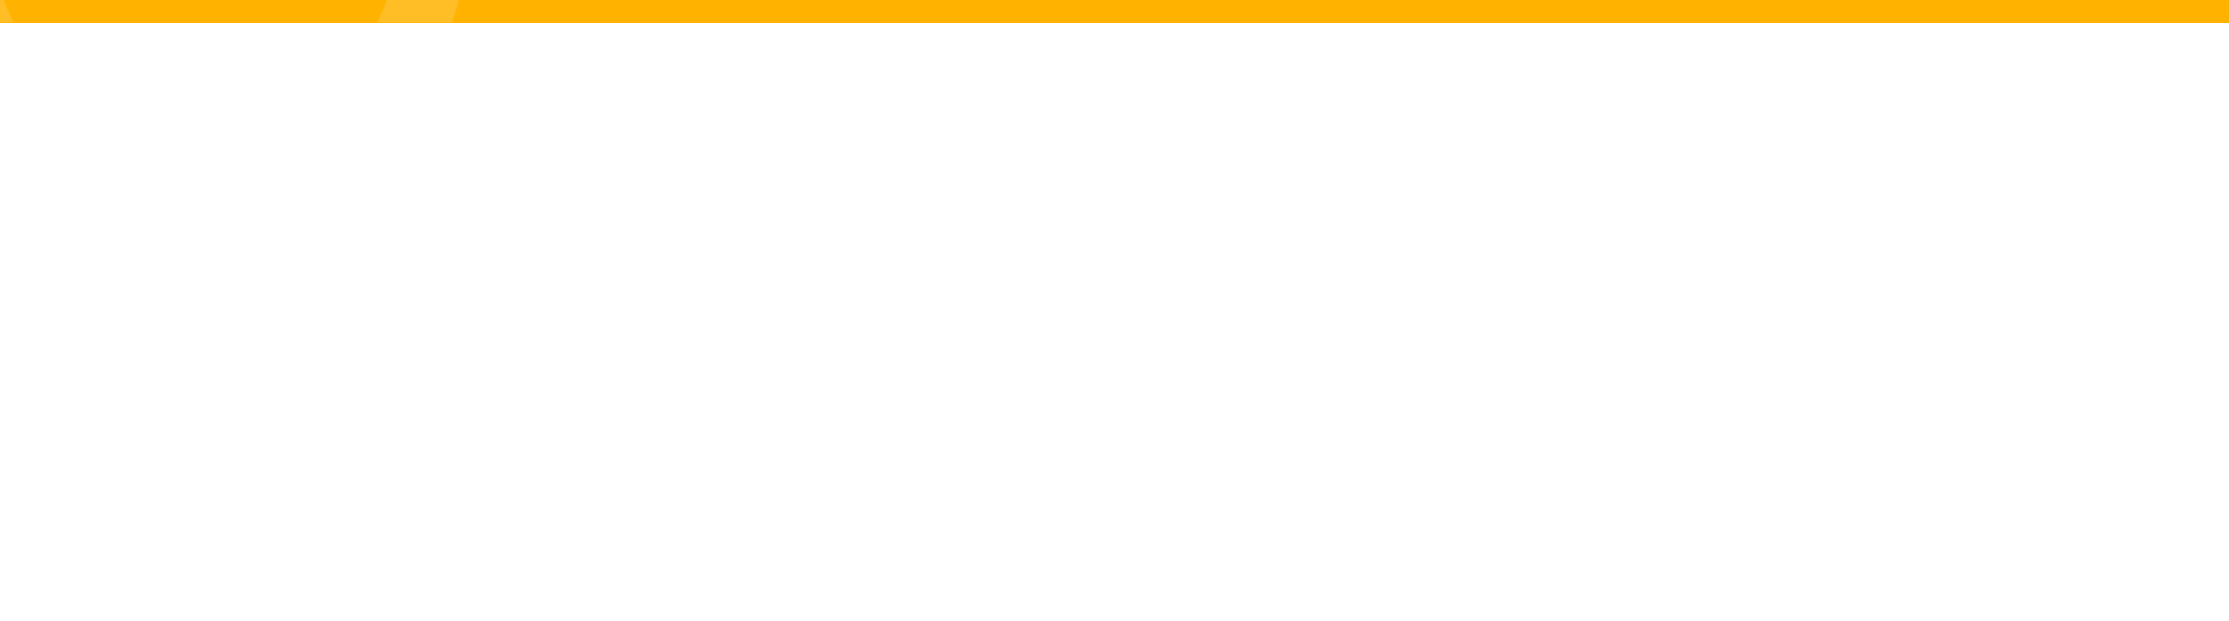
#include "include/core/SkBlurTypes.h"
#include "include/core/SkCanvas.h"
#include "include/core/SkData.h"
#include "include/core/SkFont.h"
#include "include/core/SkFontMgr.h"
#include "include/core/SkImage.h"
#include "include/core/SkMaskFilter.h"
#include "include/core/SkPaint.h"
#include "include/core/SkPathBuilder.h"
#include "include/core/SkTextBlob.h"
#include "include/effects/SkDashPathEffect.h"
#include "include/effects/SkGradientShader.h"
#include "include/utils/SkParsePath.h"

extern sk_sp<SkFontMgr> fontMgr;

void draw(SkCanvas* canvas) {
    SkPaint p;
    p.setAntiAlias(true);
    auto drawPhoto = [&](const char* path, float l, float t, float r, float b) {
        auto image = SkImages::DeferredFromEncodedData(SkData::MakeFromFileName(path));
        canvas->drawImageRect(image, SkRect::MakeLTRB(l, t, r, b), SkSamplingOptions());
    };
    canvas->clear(0xFFFFFFFF);
    p.setColor(0xFFFFB300);
    canvas->drawRect(SkRect::MakeLTRB(0, 0, 2229, 23), p);
    drawPhoto("media/1.png", 0, 0, 459, 23);
}
